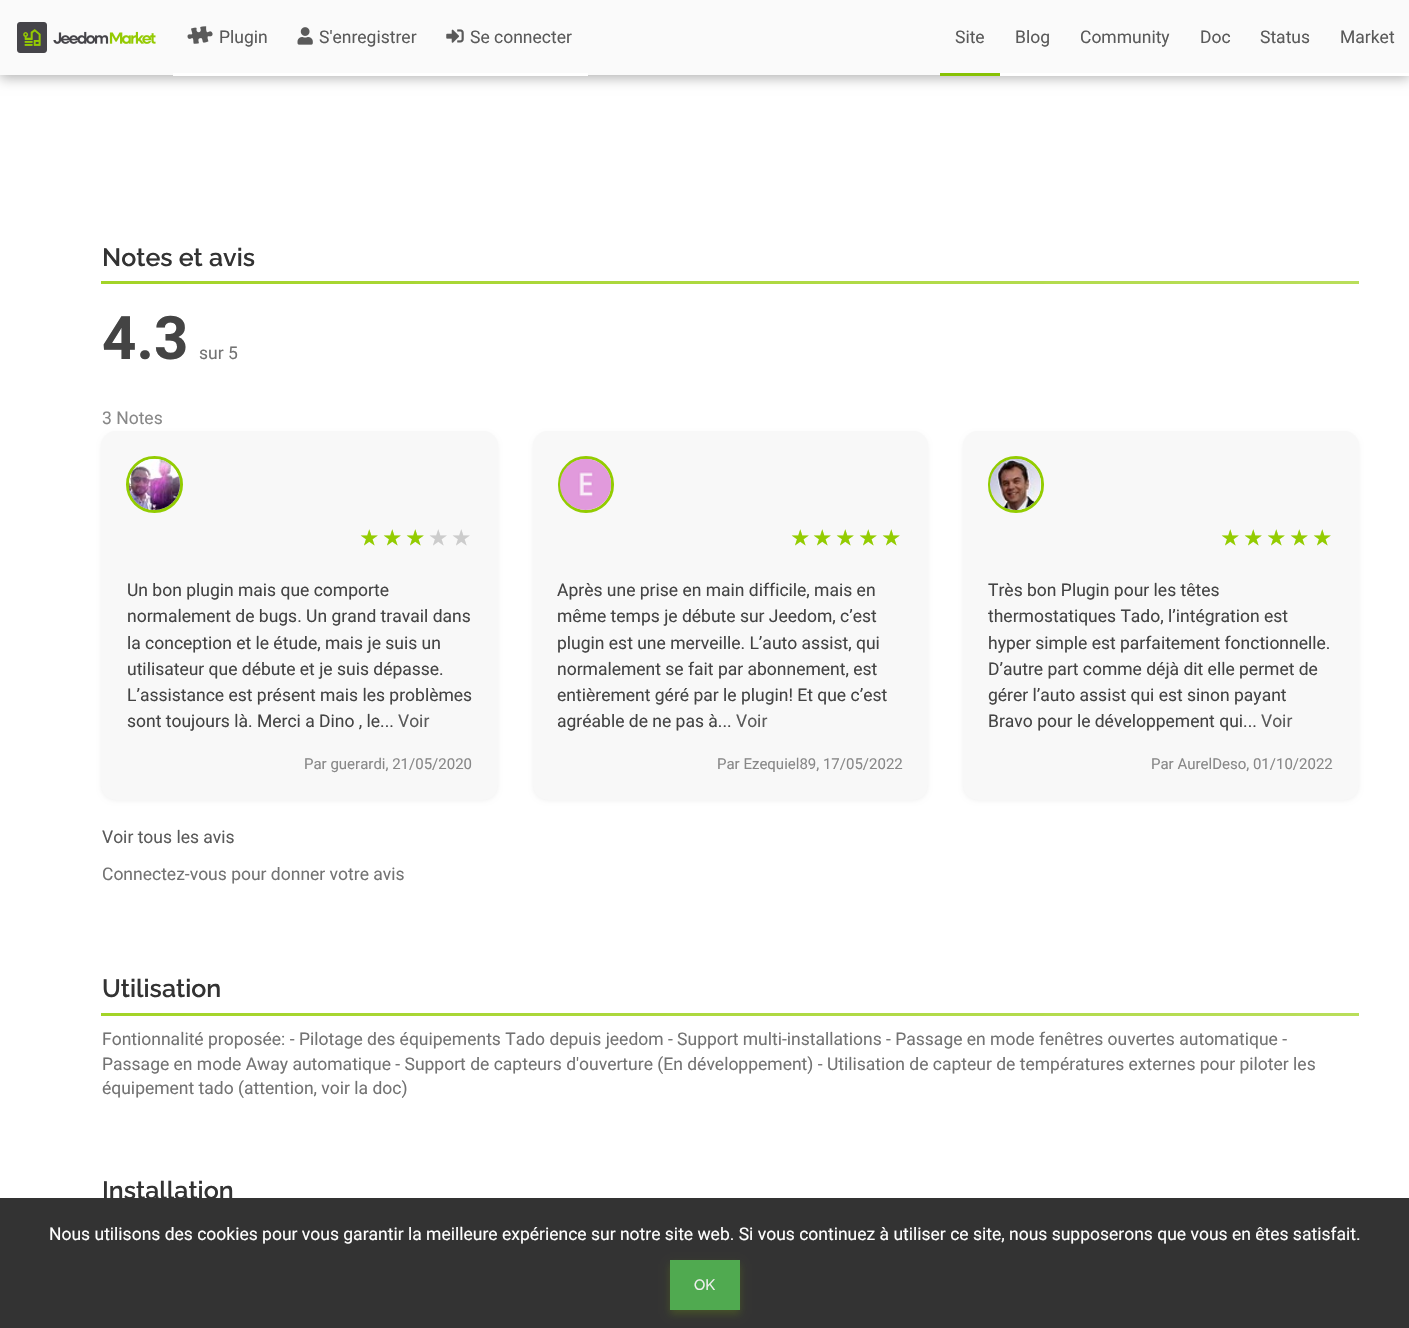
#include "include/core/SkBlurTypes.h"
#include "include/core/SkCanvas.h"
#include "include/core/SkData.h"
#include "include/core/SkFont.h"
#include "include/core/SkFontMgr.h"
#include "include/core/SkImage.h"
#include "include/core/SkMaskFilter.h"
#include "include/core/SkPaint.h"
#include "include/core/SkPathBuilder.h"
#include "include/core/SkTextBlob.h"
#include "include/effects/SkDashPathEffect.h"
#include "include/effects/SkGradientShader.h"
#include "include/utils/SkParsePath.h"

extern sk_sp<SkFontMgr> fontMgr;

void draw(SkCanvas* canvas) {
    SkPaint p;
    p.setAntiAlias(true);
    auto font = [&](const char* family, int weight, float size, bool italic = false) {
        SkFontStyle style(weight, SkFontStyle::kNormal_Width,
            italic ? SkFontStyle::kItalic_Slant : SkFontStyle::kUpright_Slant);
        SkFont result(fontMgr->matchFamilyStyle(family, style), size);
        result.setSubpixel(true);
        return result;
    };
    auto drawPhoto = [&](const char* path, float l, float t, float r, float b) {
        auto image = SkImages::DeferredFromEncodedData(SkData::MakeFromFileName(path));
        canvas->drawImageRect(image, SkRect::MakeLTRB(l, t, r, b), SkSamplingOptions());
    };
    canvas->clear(0xFFFFFFFF);
    p.setColor(0x4D000000);
    p.setMaskFilter(SkMaskFilter::MakeBlur(kNormal_SkBlurStyle, 6));
    canvas->drawRect(SkRect::MakeLTRB(0, 3, 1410, 78), p);
    p.setMaskFilter(nullptr);
    p.setColor(0xFFFAFAFA);
    canvas->drawRect(SkRect::MakeLTRB(0, 0, 1409, 75), p);
    drawPhoto("media/1.png", 17, 22, 156, 53);
    p.setColor(0xFFFFFFFF);
    canvas->drawRect(SkRect::MakeLTRB(173, 73, 588, 76), p);
    drawPhoto("media/2.png", 187, 26, 213, 44);
    auto font1 = font("Roboto", 400, 17.5f);
    p.setColor(0xFF5A5A5A);
    canvas->drawString("Plugin", 219, 43, font1, p);
    drawPhoto("media/3.png", 297, 27, 313, 45);
    canvas->drawString("S'enregistrer", 319, 43, font1, p);
    drawPhoto("media/4.png", 446, 29, 464, 43);
    canvas->drawString("Se connecter", 470, 43, font1, p);
    p.setColor(0xFF87C204);
    canvas->drawRect(SkRect::MakeLTRB(940, 73, 1000, 76), p);
    p.setColor(0xFF5A5A5A);
    canvas->drawString("Site", 955, 43, font1, p);
    p.setColor(0xFFFFFFFF);
    canvas->drawRect(SkRect::MakeLTRB(1000, 73, 1409, 76), p);
    p.setColor(0xFF5A5A5A);
    {
        const struct { const char* s; float x, y; } items[] = {
            {"Blog", 1015, 43},
            {"Community", 1080, 43},
            {"Doc", 1200, 43},
            {"Status", 1260, 43},
            {"Market", 1340, 43},
        };
        for (auto [s, x, y] : items) {
            canvas->drawString(s, x, y, font1, p);
        }
    }
    auto font2 = font("Raleway", 600, 25);
    p.setColor(0xFF333333);
    canvas->drawString("Notes et avis", 102, 266, font2, p);
    {
        const SkColor colors[] = {0xFFA3D427, 0xFFB9DE5A};
        const float stops[] = {0, 1};
        const SkPoint ends[] = {{415, -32}, {1045, 598}};
        p.setShader(SkGradientShader::MakeLinear(ends, colors, stops, 2, SkTileMode::kClamp));
        p.setAlpha(255);
    }
    canvas->drawRect(SkRect::MakeLTRB(101, 281, 1359, 284), p);
    auto font3 = font("Roboto", 700, 60);
    p.setShader(nullptr);
    p.setColor(0xFF444444);
    canvas->drawString("4.3", 102, 359, font3, p);
    p.setColor(0xFF737373);
    canvas->drawString("sur 5", 199, 359, font1, p);
    p.setColor(0xFF888888);
    canvas->drawString("3 Notes", 102, 424, font1, p);
    p.setColor(0x0D000000);
    p.setMaskFilter(SkMaskFilter::MakeBlur(kNormal_SkBlurStyle, 2));
    canvas->drawRoundRect(SkRect::MakeLTRB(101, 433, 498, 801), 15, 15, p);
    p.setMaskFilter(nullptr);
    p.setColor(0xFFF8F8F8);
    canvas->drawRoundRect(SkRect::MakeLTRB(101, 431, 498, 800), 15, 15, p);
    p.setStyle(SkPaint::kStroke_Style);
    p.setStrokeWidth(3);
    p.setColor(0xFF93CC01);
    canvas->drawCircle(154.5f, 484.5f, 27, p);
    drawPhoto("media/5.png", 128, 458, 180, 510);
    auto font4 = font("DejaVu Sans", 700, 20);
    p.setStyle(SkPaint::kFill_Style);
    {
        const struct { const char* s; float x, y; } items[] = {
            {"★", 360, 545},
            {"★", 383, 545},
            {"★", 406, 545},
        };
        for (auto [s, x, y] : items) {
            canvas->drawString(s, x, y, font4, p);
        }
    }
    p.setColor(0xFFCCCCCC);
    canvas->drawString("★", 429, 545, font4, p);
    canvas->drawString("★", 452, 545, font4, p);
    p.setColor(0xFF444444);
    {
        const struct { const char* s; float x, y; } items[] = {
            {"Un bon plugin mais que comporte", 127, 596},
            {"normalement de bugs. Un grand travail dans", 127, 622},
            {"la conception et le étude, mais je suis un", 127, 649},
            {"utilisateur que débute et je suis dépasse.", 127, 675},
            {"L’assistance est présent mais les problèmes", 127, 701},
            {"sont toujours là. Merci a Dino , le...", 127, 727},
        };
        for (auto [s, x, y] : items) {
            canvas->drawString(s, x, y, font1, p);
        }
    }
    p.setColor(0xFF5A5A5A);
    canvas->drawString("Voir", 398, 727, font1, p);
    auto font5 = font("Roboto", 400, 15);
    p.setColor(0xFF888888);
    canvas->drawString("Par guerardi, 21/05/2020", 304, 769, font5, p);
    p.setColor(0x0D000000);
    p.setMaskFilter(SkMaskFilter::MakeBlur(kNormal_SkBlurStyle, 2));
    canvas->drawRoundRect(SkRect::MakeLTRB(533, 433, 928, 801), 15, 15, p);
    p.setMaskFilter(nullptr);
    p.setColor(0xFFF8F8F8);
    canvas->drawRoundRect(SkRect::MakeLTRB(533, 431, 928, 800), 15, 15, p);
    p.setStyle(SkPaint::kStroke_Style);
    p.setColor(0xFF93CC01);
    canvas->drawRoundRect(SkRect::MakeLTRB(559.5f, 457.5f, 612.5f, 511.5f), 26.5f, 26.5f, p);
    drawPhoto("media/6.png", 560, 458, 612, 510);
    p.setStyle(SkPaint::kFill_Style);
    {
        const struct { const char* s; float x, y; } items[] = {
            {"★", 791, 545},
            {"★", 813, 545},
            {"★", 836, 545},
            {"★", 859, 545},
            {"★", 882, 545},
        };
        for (auto [s, x, y] : items) {
            canvas->drawString(s, x, y, font4, p);
        }
    }
    p.setColor(0xFF444444);
    {
        const struct { const char* s; float x, y; } items[] = {
            {"Après une prise en main difficile, mais en", 557, 596},
            {"même temps je débute sur Jeedom, c’est", 557, 622},
            {"plugin est une merveille. L’auto assist, qui", 557, 649},
            {"normalement se fait par abonnement, est", 557, 675},
            {"entièrement géré par le plugin! Et que c’est", 557, 701},
            {"agréable de ne pas à...", 557, 727},
        };
        for (auto [s, x, y] : items) {
            canvas->drawString(s, x, y, font1, p);
        }
    }
    p.setColor(0xFF5A5A5A);
    canvas->drawString("Voir", 736, 727, font1, p);
    p.setColor(0xFF888888);
    canvas->drawString("Par Ezequiel89, 17/05/2022", 717, 769, font5, p);
    p.setColor(0x0D000000);
    p.setMaskFilter(SkMaskFilter::MakeBlur(kNormal_SkBlurStyle, 2));
    canvas->drawRoundRect(SkRect::MakeLTRB(963, 433, 1359, 801), 15, 15, p);
    p.setMaskFilter(nullptr);
    p.setColor(0xFFF8F8F8);
    canvas->drawRoundRect(SkRect::MakeLTRB(963, 431, 1359, 800), 15, 15, p);
    p.setStyle(SkPaint::kStroke_Style);
    p.setColor(0xFF93CC01);
    canvas->drawRoundRect(SkRect::MakeLTRB(989.5f, 457.5f, 1042.5f, 511.5f), 26.5f, 26.5f, p);
    drawPhoto("media/7.png", 990, 458, 1042, 510);
    p.setStyle(SkPaint::kFill_Style);
    {
        const struct { const char* s; float x, y; } items[] = {
            {"★", 1221, 545},
            {"★", 1244, 545},
            {"★", 1267, 545},
            {"★", 1290, 545},
            {"★", 1313, 545},
        };
        for (auto [s, x, y] : items) {
            canvas->drawString(s, x, y, font4, p);
        }
    }
    p.setColor(0xFF444444);
    {
        const struct { const char* s; float x, y; } items[] = {
            {"Très bon Plugin pour les têtes", 988, 596},
            {"thermostatiques Tado, l’intégration est", 988, 622},
            {"hyper simple est parfaitement fonctionnelle.", 988, 649},
            {"D’autre part comme déjà dit elle permet de", 988, 675},
            {"gérer l’auto assist qui est sinon payant", 988, 701},
            {"Bravo pour le développement qui...", 988, 727},
        };
        for (auto [s, x, y] : items) {
            canvas->drawString(s, x, y, font1, p);
        }
    }
    p.setColor(0xFF5A5A5A);
    canvas->drawString("Voir", 1261, 727, font1, p);
    p.setColor(0xFF888888);
    canvas->drawString("Par AurelDeso, 01/10/2022", 1151, 769, font5, p);
    p.setColor(0xFF5A5A5A);
    canvas->drawString("Voir tous les avis", 102, 843, font1, p);
    p.setColor(0xFF737373);
    canvas->drawString("Connectez-vous pour donner votre avis", 102, 880, font1, p);
    p.setColor(0xFF333333);
    canvas->drawString("Utilisation", 102, 997, font2, p);
    {
        const SkColor colors[] = {0xFFA3D427, 0xFFB9DE5A};
        const float stops[] = {0, 1};
        const SkPoint ends[] = {{415, 699}, {1045, 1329}};
        p.setShader(SkGradientShader::MakeLinear(ends, colors, stops, 2, SkTileMode::kClamp));
        p.setAlpha(255);
    }
    canvas->drawRect(SkRect::MakeLTRB(101, 1013, 1359, 1016), p);
    p.setShader(nullptr);
    p.setColor(0xFF737373);
    {
        const struct { const char* s; float x, y; } items[] = {
            {"Fontionnalité proposée: - Pilotage des équipements Tado depuis jeedom - Support multi-installations - Passage en mode fenêtres ouvertes automatique -", 102, 1045},
            {"Passage en mode Away automatique - Support de capteurs d'ouverture (En développement) - Utilisation de capteur de températures externes pour piloter les", 102, 1070},
            {"équipement tado (attention, voir la doc)", 102, 1094},
        };
        for (auto [s, x, y] : items) {
            canvas->drawString(s, x, y, font1, p);
        }
    }
    p.setColor(0xFF333333);
    canvas->drawString("Installation", 102, 1199, font2, p);
    canvas->drawRect(SkRect::MakeLTRB(0, 1198, 1409, 1328), p);
    p.setColor(0xFFFFFFFF);
    canvas->drawString("Nous utilisons des cookies pour vous garantir la meilleure expérience sur notre site web. Si vous continuez à utiliser ce site, nous supposerons que vous en êtes satisfait.", 49, 1240, font1, p);
    p.setColor(0x3393CC01);
    p.setMaskFilter(SkMaskFilter::MakeBlur(kNormal_SkBlurStyle, 4));
    canvas->drawRect(SkRect::MakeLTRB(670, 1264, 740, 1314), p);
    p.setMaskFilter(nullptr);
    p.setColor(0xFF50AA50);
    canvas->drawRect(SkRect::MakeLTRB(670, 1260, 740, 1310), p);
    auto font6 = font("Raleway", 500, 15);
    p.setColor(0xFFF0F0F0);
    canvas->drawString("OK", 694, 1290, font6, p);
}
